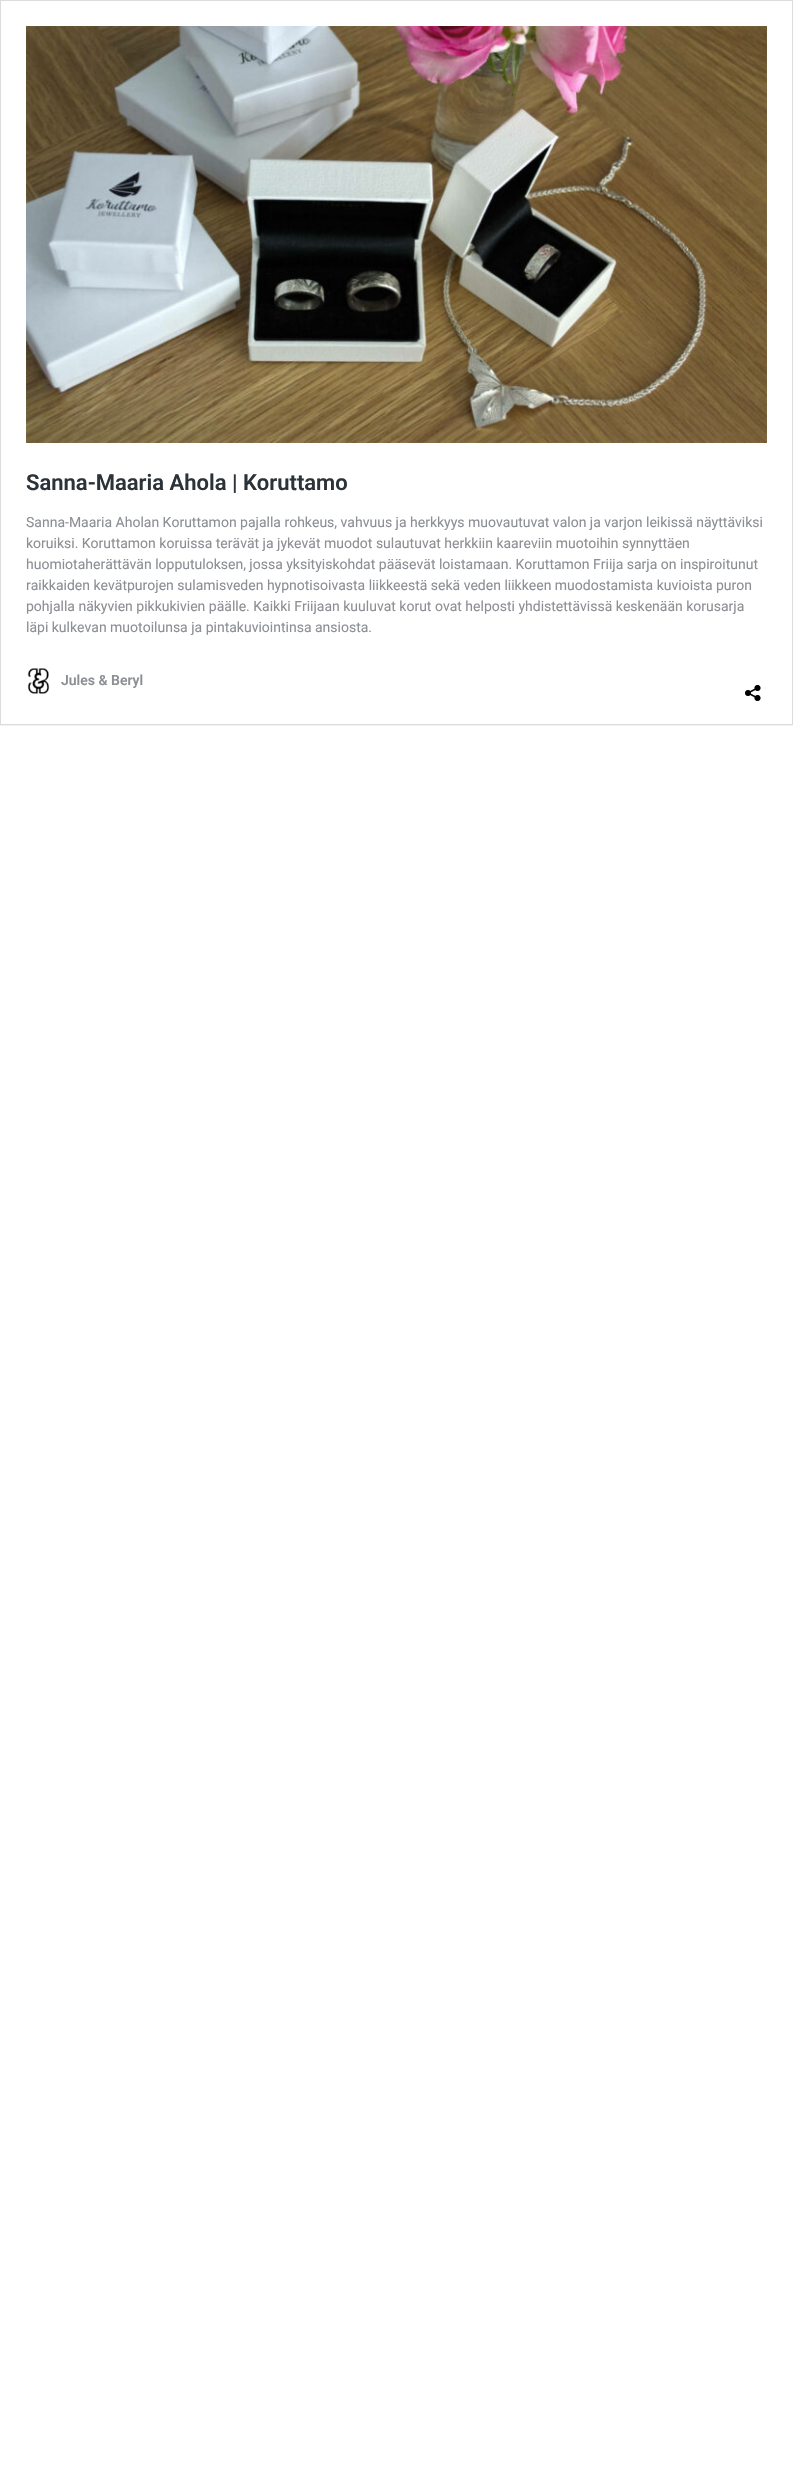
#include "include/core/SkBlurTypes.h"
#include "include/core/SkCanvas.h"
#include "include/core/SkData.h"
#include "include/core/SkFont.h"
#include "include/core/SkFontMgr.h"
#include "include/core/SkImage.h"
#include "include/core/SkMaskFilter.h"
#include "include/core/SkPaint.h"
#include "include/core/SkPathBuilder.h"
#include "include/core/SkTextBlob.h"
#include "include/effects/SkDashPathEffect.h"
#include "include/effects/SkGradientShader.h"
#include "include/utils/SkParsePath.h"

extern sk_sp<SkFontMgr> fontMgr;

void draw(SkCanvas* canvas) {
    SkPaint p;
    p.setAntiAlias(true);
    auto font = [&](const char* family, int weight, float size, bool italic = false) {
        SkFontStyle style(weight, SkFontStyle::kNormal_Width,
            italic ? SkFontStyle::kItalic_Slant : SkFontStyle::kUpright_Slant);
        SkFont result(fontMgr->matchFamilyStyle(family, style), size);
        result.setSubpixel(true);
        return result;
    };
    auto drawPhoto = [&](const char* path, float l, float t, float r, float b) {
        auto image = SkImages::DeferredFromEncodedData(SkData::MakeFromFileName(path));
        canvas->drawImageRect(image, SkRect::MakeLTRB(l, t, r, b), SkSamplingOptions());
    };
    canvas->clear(0xFFFFFFFF);
    canvas->save();
    canvas->clipRect(SkRect::MakeLTRB(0, 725, 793, 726));
    p.setColor(0x0D000000);
    p.setMaskFilter(SkMaskFilter::MakeBlur(kNormal_SkBlurStyle, 0.5f));
    canvas->drawRect(SkRect::MakeLTRB(0, 1, 793, 726), p);
    p.setMaskFilter(nullptr);
    canvas->restore();
    p.setStyle(SkPaint::kStroke_Style);
    p.setStrokeWidth(1);
    p.setColor(0xFFDCDCDE);
    canvas->drawRect(SkRect::MakeLTRB(0.5f, 0.5f, 792.5f, 724.5f), p);
    drawPhoto("media/1.png", 26, 26, 767, 443);
    auto font1 = font("Roboto", 600, 22);
    p.setStyle(SkPaint::kFill_Style);
    p.setColor(0xFF2C3338);
    canvas->drawString("Sanna-Maaria Ahola | Koruttamo", 26, 490, font1, p);
    auto font2 = font("Roboto", 400, 14);
    p.setColor(0xFF8C8F94);
    {
        const struct { const char* s; float x, y; } items[] = {
            {"Sanna-Maaria Aholan Koruttamon pajalla rohkeus, vahvuus ja herkkyys muovautuvat valon ja varjon leikissä näyttäviksi", 26, 527},
            {"koruiksi. Koruttamon koruissa terävät ja jykevät muodot sulautuvat herkkiin kaareviin muotoihin synnyttäen", 26, 548},
            {"huomiotaherättävän lopputuloksen, jossa yksityiskohdat pääsevät loistamaan. Koruttamon Friija sarja on inspiroitunut", 26, 569},
            {"raikkaiden kevätpurojen sulamisveden hypnotisoivasta liikkeestä sekä veden liikkeen muodostamista kuvioista puron", 26, 590},
            {"pohjalla näkyvien pikkukivien päälle. Kaikki Friijaan kuuluvat korut ovat helposti yhdistettävissä keskenään korusarja", 26, 611},
            {"läpi kulkevan muotoilunsa ja pintakuviointinsa ansiosta.", 26, 632},
        };
        for (auto [s, x, y] : items) {
            canvas->drawString(s, x, y, font2, p);
        }
    }
    drawPhoto("media/2.png", 27, 668, 50, 694);
    auto font3 = font("Roboto", 600, 14);
    canvas->drawString("Jules & Beryl", 61, 685, font3, p);
    drawPhoto("media/3.png", 745, 685, 761, 701);
    drawPhoto("media/4.png", 745, 685, 761, 701);
}
